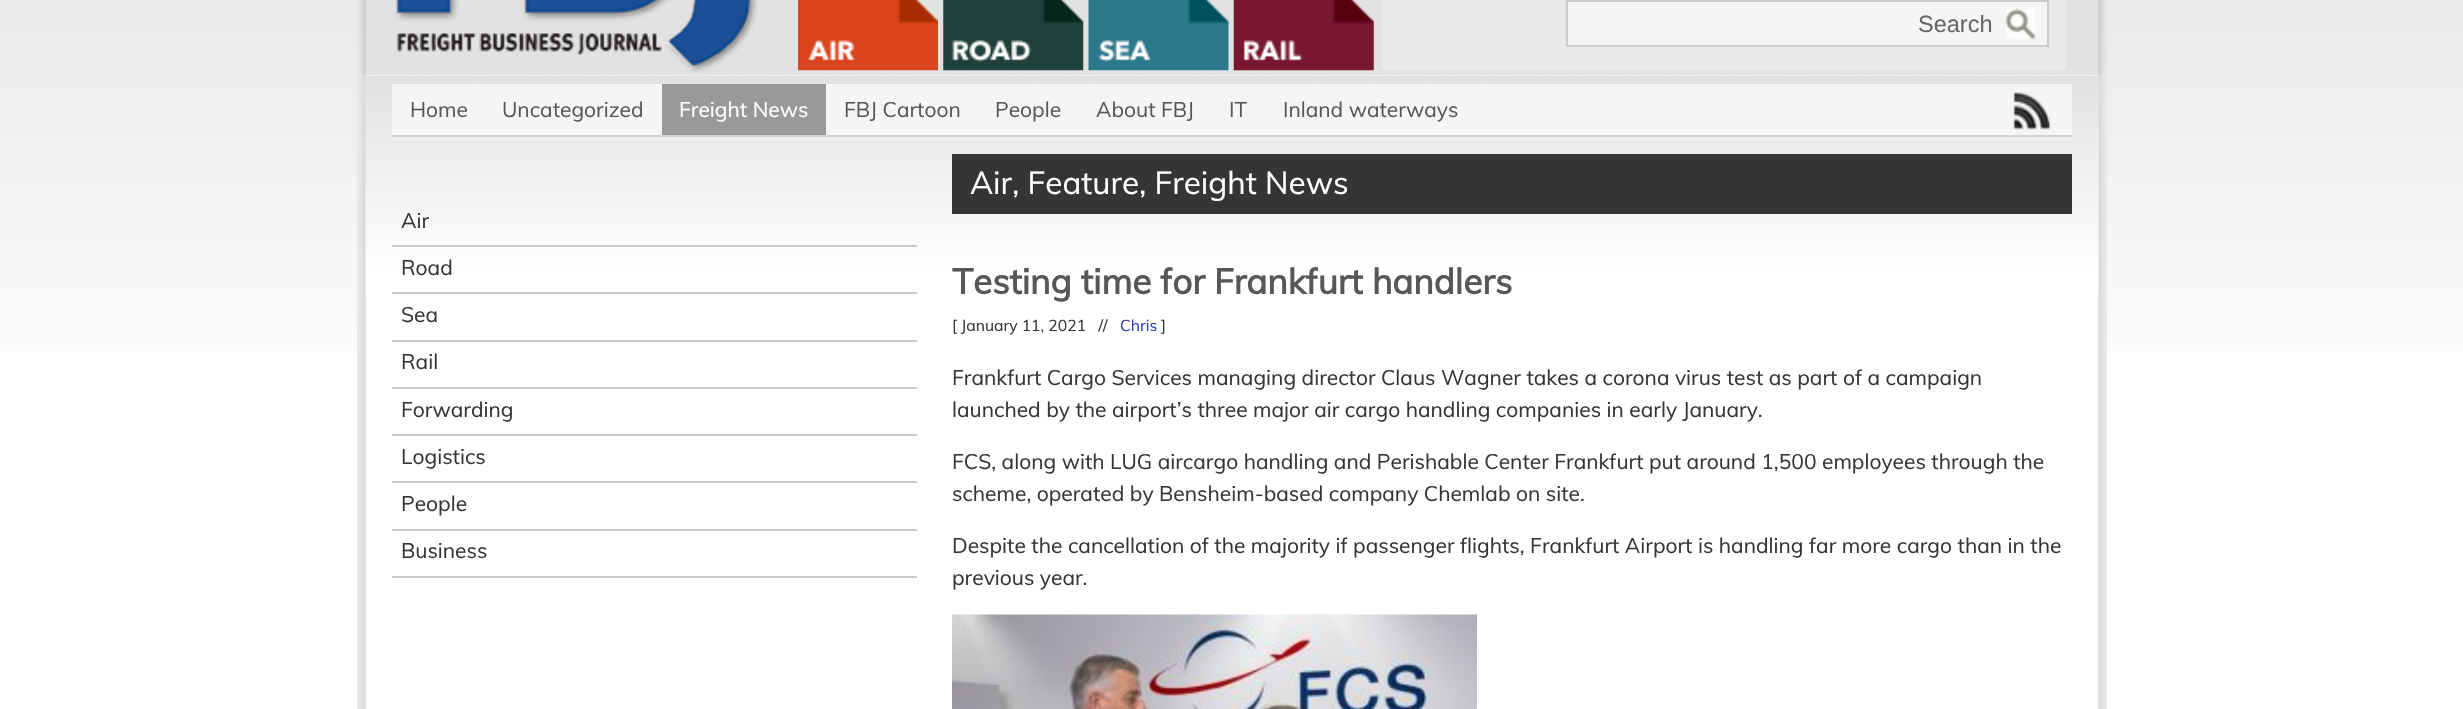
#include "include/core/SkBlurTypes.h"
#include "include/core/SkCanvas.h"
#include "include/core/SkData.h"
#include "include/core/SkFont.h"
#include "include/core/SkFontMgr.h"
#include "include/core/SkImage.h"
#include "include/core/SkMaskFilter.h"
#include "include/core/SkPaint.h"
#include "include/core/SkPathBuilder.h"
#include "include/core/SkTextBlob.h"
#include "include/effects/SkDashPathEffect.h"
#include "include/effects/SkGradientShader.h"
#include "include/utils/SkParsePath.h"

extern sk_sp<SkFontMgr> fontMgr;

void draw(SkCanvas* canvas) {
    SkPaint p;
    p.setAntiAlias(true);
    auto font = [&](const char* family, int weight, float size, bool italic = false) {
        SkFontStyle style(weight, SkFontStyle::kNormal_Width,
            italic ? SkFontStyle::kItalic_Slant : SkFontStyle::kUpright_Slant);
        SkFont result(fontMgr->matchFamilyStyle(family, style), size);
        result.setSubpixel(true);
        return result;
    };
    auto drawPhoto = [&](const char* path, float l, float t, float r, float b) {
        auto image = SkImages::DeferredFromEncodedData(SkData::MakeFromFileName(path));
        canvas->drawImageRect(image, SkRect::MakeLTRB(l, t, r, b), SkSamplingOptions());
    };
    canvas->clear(0xFFFFFFFF);
    drawPhoto("media/1.png", 0, 0, 2463, 351);
    drawPhoto("media/2.png", 357, 0, 2107, 76);
    drawPhoto("media/3.png", 394, 0, 758, 73);
    drawPhoto("media/4.png", 798, 0, 938, 71);
    drawPhoto("media/5.png", 943, 0, 1084, 71);
    drawPhoto("media/6.png", 1088, 0, 1229, 71);
    drawPhoto("media/7.png", 1233, 0, 1374, 71);
    p.setColor(0xFFE9E9E9);
    canvas->drawRect(SkRect::MakeLTRB(1381, 0, 2067, 70), p);
    p.setColor(0xFFF5F5F5);
    canvas->drawRect(SkRect::MakeLTRB(1568, 2, 2047, 45), p);
    drawPhoto("media/8.png", 2005, 8, 2036, 40);
    p.setStyle(SkPaint::kStroke_Style);
    p.setStrokeWidth(2);
    p.setColor(0xFFCCCCCC);
    canvas->drawRect(SkRect::MakeLTRB(1567, 1, 2048, 46), p);
    auto font1 = font("Liberation Sans", 400, 23.5f);
    p.setStyle(SkPaint::kFill_Style);
    p.setColor(0xFF666666);
    canvas->drawString("Search", 1918, 32, font1, p);
    drawPhoto("media/9.png", 357, 75, 2107, 709);
    p.setColor(0xFFFFFFFF);
    canvas->drawRect(SkRect::MakeLTRB(366, 75, 2098, 709), p);
    drawPhoto("media/10.png", 365, 75, 2099, 292);
    p.setColor(0xFFF5F5F5);
    canvas->drawRect(SkRect::MakeLTRB(392, 84, 2072, 135), p);
    p.setColor(0xFFD3D3D3);
    canvas->drawRect(SkRect::MakeLTRB(392, 135, 2072, 137), p);
    auto font2 = font("Muli", 400, 21);
    p.setColor(0xFF575757);
    canvas->drawString("Home", 410, 117, font2, p);
    canvas->drawString("Uncategorized", 502, 117, font2, p);
    p.setColor(0xFF999999);
    canvas->drawRect(SkRect::MakeLTRB(662, 84, 826, 135), p);
    p.setColor(0xFFFFFFFF);
    canvas->drawString("Freight News", 679, 117, font2, p);
    p.setColor(0xFF575757);
    {
        const struct { const char* s; float x, y; } items[] = {
            {"FBJ Cartoon", 844, 117},
            {"People", 995, 117},
            {"About FBJ", 1096, 117},
            {"IT", 1229, 117},
            {"Inland waterways", 1283, 117},
        };
        for (auto [s, x, y] : items) {
            canvas->drawString(s, x, y, font2, p);
        }
    }
    drawPhoto("media/11.png", 2012, 92, 2052, 130);
    p.setColor(0xFFCCCCCC);
    canvas->drawRect(SkRect::MakeLTRB(392, 245, 917, 247), p);
    p.setColor(0xFF353535);
    canvas->drawString("Air", 401, 228, font2, p);
    p.setColor(0xFFCCCCCC);
    canvas->drawRect(SkRect::MakeLTRB(392, 292, 917, 294), p);
    p.setColor(0xFF353535);
    canvas->drawString("Road", 401, 275, font2, p);
    p.setColor(0xFFCCCCCC);
    canvas->drawRect(SkRect::MakeLTRB(392, 340, 917, 342), p);
    p.setColor(0xFF353535);
    canvas->drawString("Sea", 401, 322, font2, p);
    p.setColor(0xFFCCCCCC);
    canvas->drawRect(SkRect::MakeLTRB(392, 387, 917, 389), p);
    p.setColor(0xFF353535);
    canvas->drawString("Rail", 401, 369, font2, p);
    p.setColor(0xFFCCCCCC);
    canvas->drawRect(SkRect::MakeLTRB(392, 434, 917, 436), p);
    p.setColor(0xFF353535);
    canvas->drawString("Forwarding", 401, 417, font2, p);
    p.setColor(0xFFCCCCCC);
    canvas->drawRect(SkRect::MakeLTRB(392, 481, 917, 483), p);
    p.setColor(0xFF353535);
    canvas->drawString("Logistics", 401, 464, font2, p);
    p.setColor(0xFFCCCCCC);
    canvas->drawRect(SkRect::MakeLTRB(392, 529, 917, 531), p);
    p.setColor(0xFF353535);
    canvas->drawString("People", 401, 511, font2, p);
    p.setColor(0xFFCCCCCC);
    canvas->drawRect(SkRect::MakeLTRB(392, 576, 917, 578), p);
    p.setColor(0xFF353535);
    canvas->drawString("Business", 401, 558, font2, p);
    canvas->drawRect(SkRect::MakeLTRB(952, 154, 2072, 214), p);
    auto font3 = font("Muli", 400, 31.5f);
    p.setColor(0xFFFFFFFF);
    canvas->drawString("Air, Feature, Freight News", 970, 194, font3, p);
    auto font4 = font("Muli", 700, 35);
    p.setColor(0xFF575757);
    canvas->drawString("Testing time for Frankfurt handlers", 952, 294, font4, p);
    auto font5 = font("Muli", 400, 15.75f);
    p.setColor(0xFF353535);
    canvas->drawString("[ January 11, 2021   //", 952, 331, font5, p);
    p.setColor(0xFF323EAE);
    canvas->drawString("Chris", 1120, 331, font5, p);
    p.setColor(0xFF353535);
    canvas->drawString("]", 1161, 331, font5, p);
    {
        const struct { const char* s; float x, y; } items[] = {
            {"Frankfurt Cargo Services managing director Claus Wagner takes a corona virus test as part of a campaign", 952, 385},
            {"launched by the airport’s three major air cargo handling companies in early January.", 952, 417},
            {"FCS, along with LUG aircargo handling and Perishable Center Frankfurt put around 1,500 employees through the", 952, 469},
            {"scheme, operated by Bensheim-based company Chemlab on site.", 952, 501},
            {"Despite the cancellation of the majority if passenger flights, Frankfurt Airport is handling far more cargo than in the", 952, 553},
            {"previous year.", 952, 585},
        };
        for (auto [s, x, y] : items) {
            canvas->drawString(s, x, y, font2, p);
        }
    }
    drawPhoto("media/12.png", 952, 614, 1477, 709);
}
